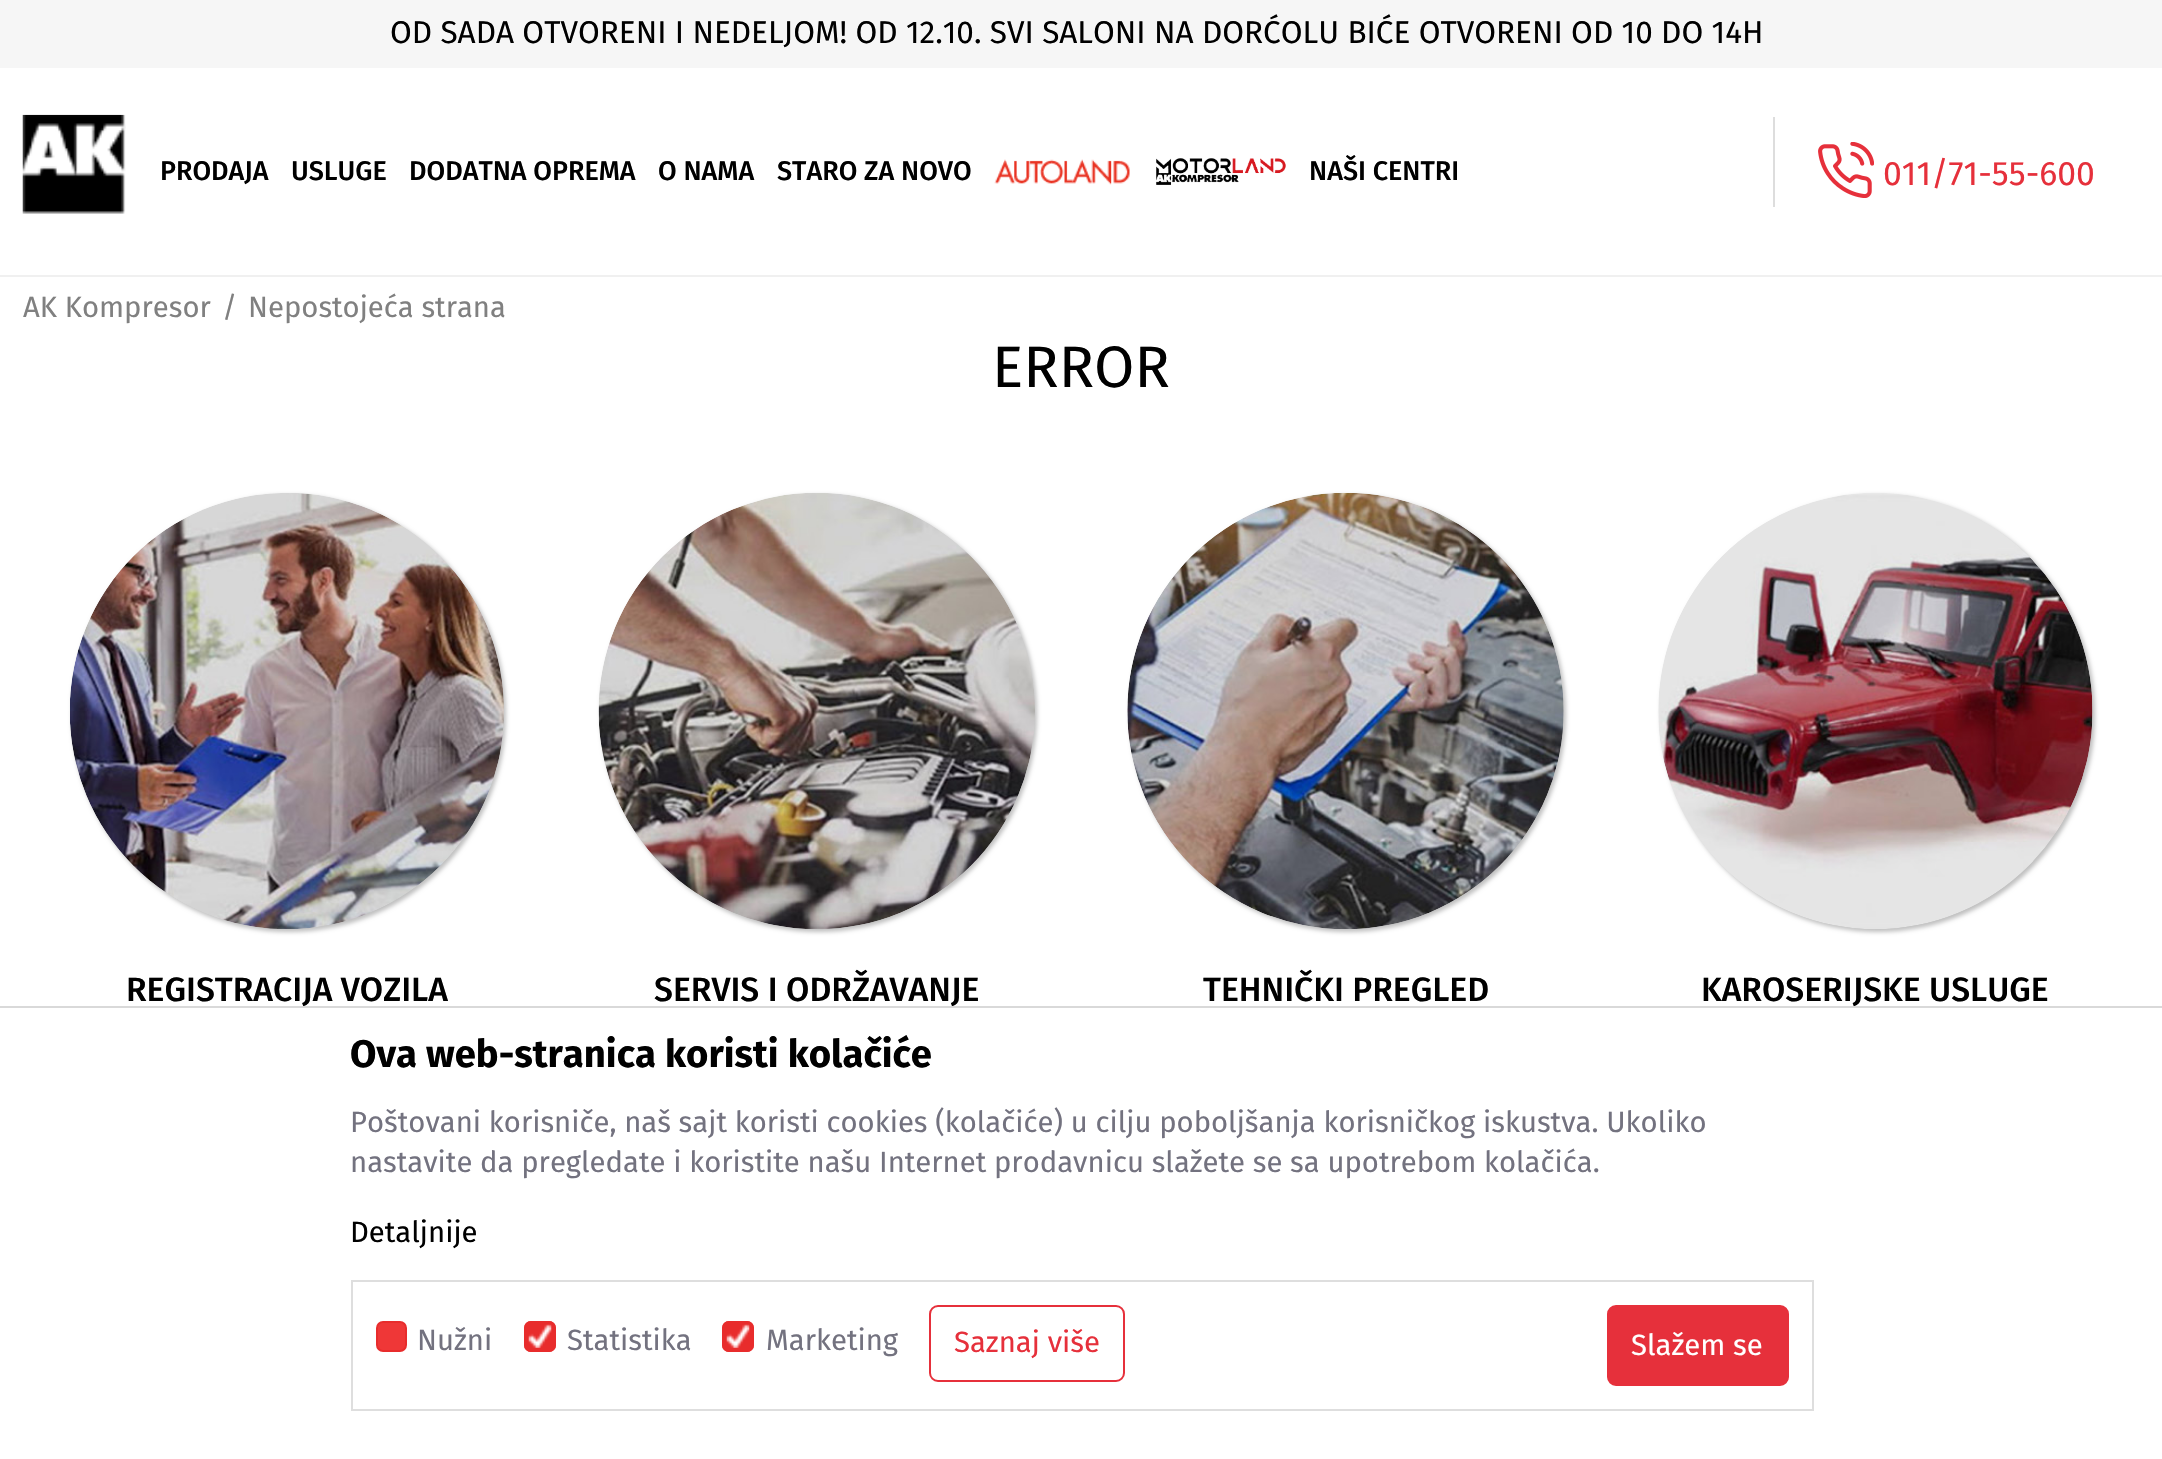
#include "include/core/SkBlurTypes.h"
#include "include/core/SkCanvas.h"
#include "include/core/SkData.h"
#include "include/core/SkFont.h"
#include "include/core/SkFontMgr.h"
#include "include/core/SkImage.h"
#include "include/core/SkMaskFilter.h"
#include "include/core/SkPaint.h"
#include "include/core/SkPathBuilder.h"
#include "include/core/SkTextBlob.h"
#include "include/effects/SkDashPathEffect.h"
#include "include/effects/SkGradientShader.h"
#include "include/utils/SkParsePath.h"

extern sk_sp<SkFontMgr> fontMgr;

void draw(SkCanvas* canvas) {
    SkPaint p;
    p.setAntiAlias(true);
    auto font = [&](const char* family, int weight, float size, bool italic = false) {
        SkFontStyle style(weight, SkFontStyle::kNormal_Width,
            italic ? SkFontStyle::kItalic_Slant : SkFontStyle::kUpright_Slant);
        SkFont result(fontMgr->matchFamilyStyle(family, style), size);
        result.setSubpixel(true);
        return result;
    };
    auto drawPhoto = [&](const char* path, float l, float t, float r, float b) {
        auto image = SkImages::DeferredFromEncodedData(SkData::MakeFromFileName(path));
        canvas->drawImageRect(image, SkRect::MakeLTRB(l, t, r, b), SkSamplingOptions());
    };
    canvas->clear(0xFFFFFFFF);
    p.setColor(0xFFF6F6F6);
    canvas->drawRect(SkRect::MakeLTRB(0, 0, 2162, 68), p);
    auto font1 = font("Fira Sans", 400, 31.5f);
    p.setColor(0xFF000000);
    canvas->drawString("OD SADA OTVORENI I NEDELJOM! OD 12.10. SVI SALONI NA DORĆOLU BIĆE OTVORENI OD 10 DO 14H", 390, 43, font1, p);
    p.setColor(0xFFF0F0F0);
    canvas->drawRect(SkRect::MakeLTRB(0, 275, 2162, 277), p);
    drawPhoto("media/1.png", 22, 114, 126, 214);
    auto font2 = font("Fira Sans", 500, 27);
    p.setColor(0xFF000000);
    {
        const struct { const char* s; float x, y; } items[] = {
            {"PRODAJA", 160, 180},
            {"USLUGE", 291, 180},
            {"DODATNA OPREMA", 409, 180},
            {"O NAMA", 658, 180},
            {"STARO ZA NOVO", 777, 180},
        };
        for (auto [s, x, y] : items) {
            canvas->drawString(s, x, y, font2, p);
        }
    }
    drawPhoto("media/2.png", 994, 159, 1130, 185);
    drawPhoto("media/3.png", 1156, 158, 1286, 185);
    canvas->drawString("NAŠI CENTRI", 1309, 180, font2, p);
    p.setColor(0xFFDDDDDD);
    canvas->drawRect(SkRect::MakeLTRB(1773, 117, 1775, 207), p);
    drawPhoto("media/4.png", 1818, 142, 1874, 198);
    auto font3 = font("Fira Sans", 400, 33.75f);
    p.setColor(0xFFE6303B);
    canvas->drawString("011/71-55-600", 1883, 185, font3, p);
    auto font4 = font("Fira Sans", 400, 29.25f);
    p.setColor(0xFF808080);
    {
        const struct { const char* s; float x, y; } items[] = {
            {"AK Kompresor", 23, 317},
            {"/", 222, 317},
            {"Nepostojeća strana", 248, 317},
        };
        for (auto [s, x, y] : items) {
            canvas->drawString(s, x, y, font4, p);
        }
    }
    auto font5 = font("Fira Sans", 400, 58.5f);
    p.setColor(0xFF000000);
    canvas->drawString("ERROR", 992, 387, font5, p);
    p.setColor(0x40000000);
    p.setMaskFilter(SkMaskFilter::MakeBlur(kNormal_SkBlurStyle, 2));
    canvas->drawRoundRect(SkRect::MakeLTRB(72, 495, 506, 932), 217, 217, p);
    p.setMaskFilter(nullptr);
    drawPhoto("media/5.png", 70, 493, 504, 929);
    auto font6 = font("Fira Sans", 500, 33.75f);
    p.setColor(0xFF000000);
    canvas->drawString("REGISTRACIJA VOZILA", 126, 1001, font6, p);
    p.setColor(0x40000000);
    p.setMaskFilter(SkMaskFilter::MakeBlur(kNormal_SkBlurStyle, 2));
    canvas->drawRoundRect(SkRect::MakeLTRB(601, 495, 1037, 932), 218, 218, p);
    p.setMaskFilter(nullptr);
    drawPhoto("media/6.png", 598, 493, 1035, 929);
    p.setColor(0xFF000000);
    canvas->drawString("SERVIS I ODRŽAVANJE", 654, 1001, font6, p);
    p.setColor(0x40000000);
    p.setMaskFilter(SkMaskFilter::MakeBlur(kNormal_SkBlurStyle, 2));
    canvas->drawRoundRect(SkRect::MakeLTRB(1130, 495, 1566, 932), 218, 218, p);
    p.setMaskFilter(nullptr);
    drawPhoto("media/7.png", 1127, 493, 1564, 929);
    p.setColor(0xFF000000);
    canvas->drawString("TEHNIČKI PREGLED", 1203, 1001, font6, p);
    p.setColor(0x40000000);
    p.setMaskFilter(SkMaskFilter::MakeBlur(kNormal_SkBlurStyle, 2));
    canvas->drawRoundRect(SkRect::MakeLTRB(1661, 495, 2095, 932), 217, 217, p);
    p.setMaskFilter(nullptr);
    drawPhoto("media/8.png", 1658, 493, 2093, 929);
    p.setColor(0xFF000000);
    canvas->drawString("KAROSERIJSKE USLUGE", 1701, 1001, font6, p);
    p.setStyle(SkPaint::kStroke_Style);
    p.setStrokeWidth(2);
    p.setColor(0xFFD9D9D9);
    canvas->drawRect(SkRect::MakeLTRB(-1, 1007, 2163, 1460), p);
    auto font7 = font("Fira Sans", 700, 38.25f);
    p.setStyle(SkPaint::kFill_Style);
    p.setColor(0xFF000000);
    canvas->drawString("Ova web-stranica koristi kolačiće", 350, 1067, font7, p);
    p.setColor(0xFF73727F);
    canvas->drawString("Poštovani korisniče, naš sajt koristi cookies (kolačiće) u cilju poboljšanja korisničkog iskustva. Ukoliko", 350, 1132, font4, p);
    canvas->drawString("nastavite da pregledate i koristite našu Internet prodavnicu slažete se sa upotrebom kolačića.", 350, 1172, font4, p);
    p.setColor(0xFF000000);
    canvas->drawString("Detaljnije", 350, 1242, font4, p);
    p.setStyle(SkPaint::kStroke_Style);
    p.setColor(0xFFDEDEDE);
    canvas->drawRect(SkRect::MakeLTRB(352, 1281, 1813, 1410), p);
    p.setStyle(SkPaint::kFill_Style);
    p.setColor(0xFFEF3737);
    canvas->drawRoundRect(SkRect::MakeLTRB(377, 1322, 406, 1351), 6, 6, p);
    p.setStyle(SkPaint::kStroke_Style);
    p.setColor(0xFFE82C2C);
    canvas->drawRoundRect(SkRect::MakeLTRB(377, 1322, 406, 1351), 6, 6, p);
    p.setStyle(SkPaint::kFill_Style);
    p.setColor(0xFF73727F);
    canvas->drawString("Nužni", 417, 1350, font4, p);
    p.setColor(0xFFE82C2C);
    canvas->drawRoundRect(SkRect::MakeLTRB(524, 1321, 556, 1352), 7, 7, p);
    drawPhoto("media/9.png", 528, 1324, 552, 1348);
    p.setStyle(SkPaint::kStroke_Style);
    canvas->drawRoundRect(SkRect::MakeLTRB(525, 1322, 555, 1351), 6, 6, p);
    p.setStyle(SkPaint::kFill_Style);
    p.setColor(0xFF73727F);
    canvas->drawString("Statistika", 567, 1350, font4, p);
    p.setColor(0xFFE82C2C);
    canvas->drawRoundRect(SkRect::MakeLTRB(722, 1321, 754, 1352), 7, 7, p);
    drawPhoto("media/10.png", 726, 1324, 750, 1348);
    p.setStyle(SkPaint::kStroke_Style);
    canvas->drawRoundRect(SkRect::MakeLTRB(723, 1322, 753, 1351), 6, 6, p);
    p.setStyle(SkPaint::kFill_Style);
    p.setColor(0xFF73727F);
    canvas->drawString("Marketing", 766, 1350, font4, p);
    p.setStyle(SkPaint::kStroke_Style);
    p.setColor(0xFFE6303B);
    canvas->drawRoundRect(SkRect::MakeLTRB(930, 1306, 1124, 1381), 8, 8, p);
    p.setStyle(SkPaint::kFill_Style);
    canvas->drawString("Saznaj više", 954, 1352, font4, p);
    canvas->drawRoundRect(SkRect::MakeLTRB(1608, 1306, 1788, 1385), 8, 8, p);
    p.setStyle(SkPaint::kStroke_Style);
    canvas->drawRoundRect(SkRect::MakeLTRB(1608, 1306, 1788, 1385), 8, 8, p);
    p.setStyle(SkPaint::kFill_Style);
    p.setColor(0xFFFFFFFF);
    canvas->drawString("Slažem se", 1631, 1355, font4, p);
}
